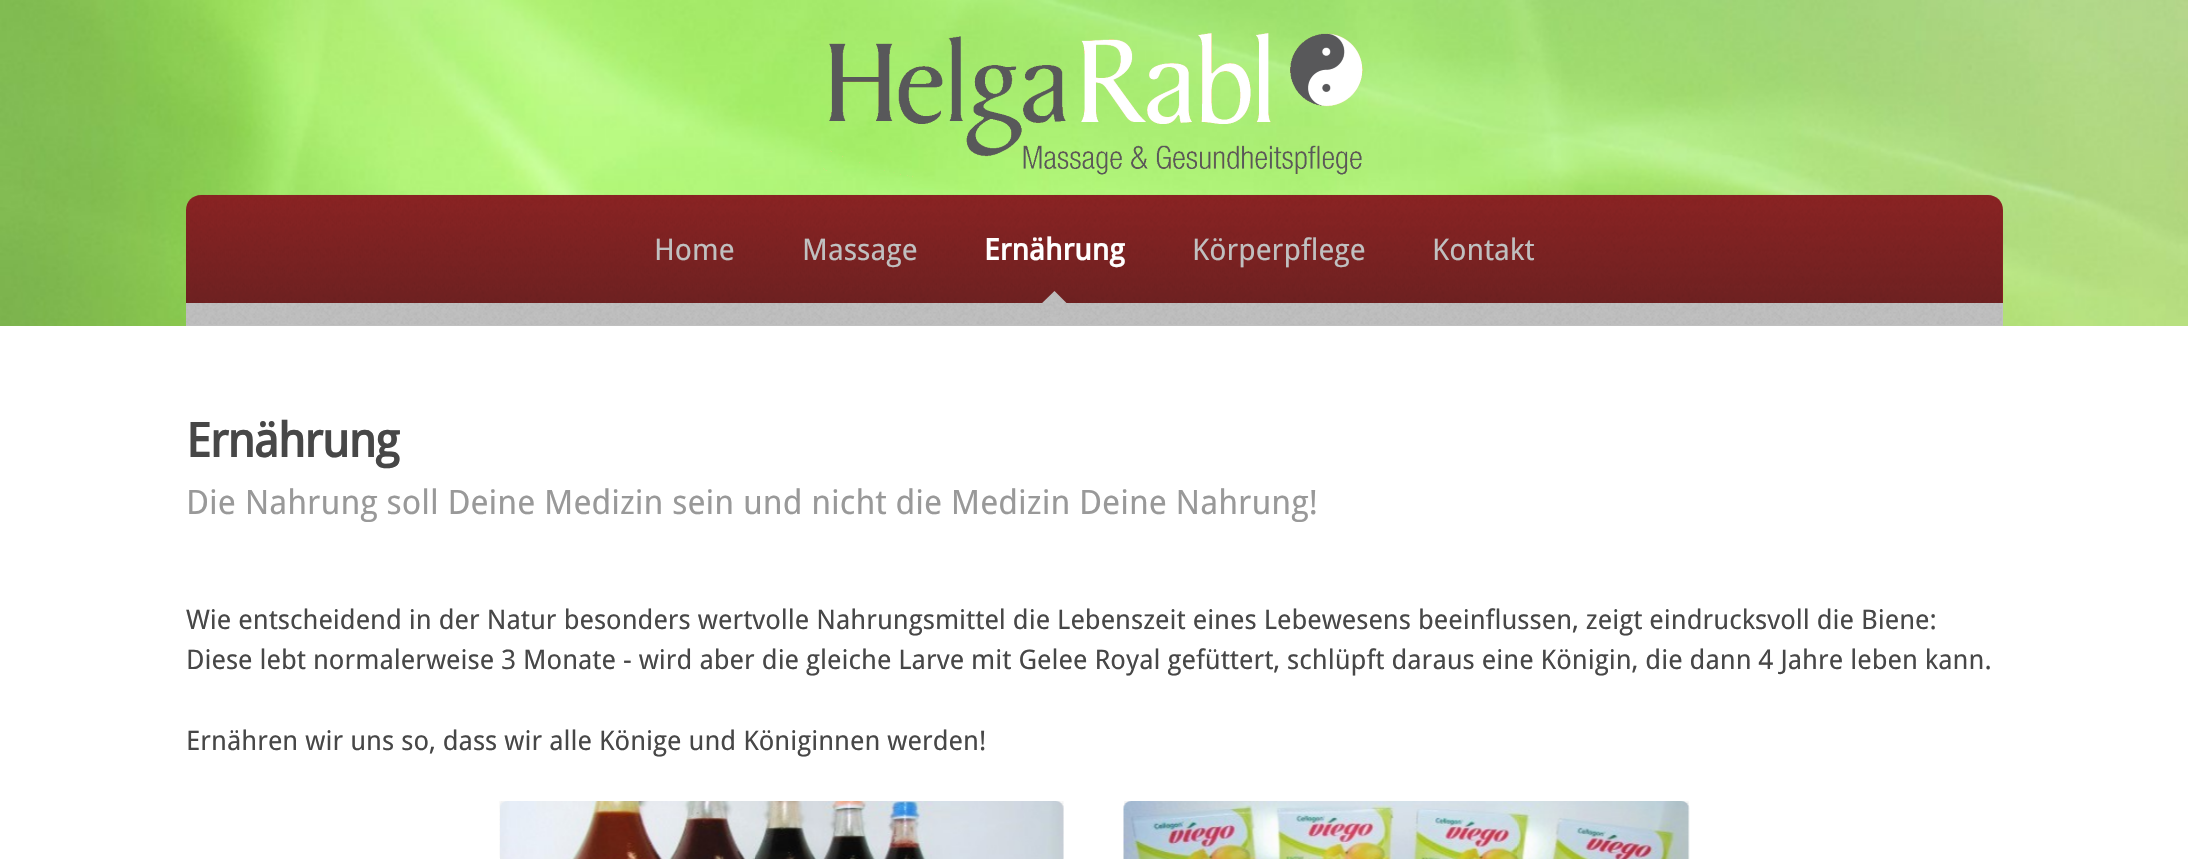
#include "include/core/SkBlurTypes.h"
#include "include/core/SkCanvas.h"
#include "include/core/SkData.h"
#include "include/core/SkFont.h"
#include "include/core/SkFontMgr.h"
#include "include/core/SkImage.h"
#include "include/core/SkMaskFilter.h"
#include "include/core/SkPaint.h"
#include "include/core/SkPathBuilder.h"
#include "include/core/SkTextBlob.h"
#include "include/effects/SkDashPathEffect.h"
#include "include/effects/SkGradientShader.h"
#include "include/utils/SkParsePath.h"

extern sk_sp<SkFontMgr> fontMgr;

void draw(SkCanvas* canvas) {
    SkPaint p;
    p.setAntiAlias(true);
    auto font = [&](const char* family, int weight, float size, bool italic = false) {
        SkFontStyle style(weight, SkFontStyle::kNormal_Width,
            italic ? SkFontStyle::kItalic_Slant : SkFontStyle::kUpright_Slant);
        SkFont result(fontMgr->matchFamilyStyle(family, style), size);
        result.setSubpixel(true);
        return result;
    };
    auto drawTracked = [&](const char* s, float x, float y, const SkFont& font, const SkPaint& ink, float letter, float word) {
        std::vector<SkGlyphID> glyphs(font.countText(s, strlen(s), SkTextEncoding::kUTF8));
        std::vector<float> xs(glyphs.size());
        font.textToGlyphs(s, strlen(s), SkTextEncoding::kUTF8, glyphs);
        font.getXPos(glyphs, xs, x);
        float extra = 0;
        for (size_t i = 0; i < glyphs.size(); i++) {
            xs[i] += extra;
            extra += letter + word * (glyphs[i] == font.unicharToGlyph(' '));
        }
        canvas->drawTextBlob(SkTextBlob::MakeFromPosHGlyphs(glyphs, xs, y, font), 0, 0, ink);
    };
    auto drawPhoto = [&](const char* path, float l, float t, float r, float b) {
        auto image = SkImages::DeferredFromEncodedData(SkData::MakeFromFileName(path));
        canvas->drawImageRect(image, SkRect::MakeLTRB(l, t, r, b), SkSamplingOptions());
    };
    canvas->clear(0xFFFFFFFF);
    drawPhoto("media/1.png", 0, 0, 2188, 326);
    drawPhoto("media/2.png", 823, 32, 1363, 177);
    p.setColor(0xFF8B2323);
    canvas->drawPath(SkPathBuilder().moveTo(201, 195).lineTo(1988, 195).cubicTo(1996.5f, 195, 2003, 201.5f, 2003, 210).lineTo(2003, 326).lineTo(186, 326).lineTo(186, 210).cubicTo(186, 201.5f, 192.5f, 195, 201, 195).close().detach(), p);
    drawPhoto("media/3.png", 186, 194, 2003, 303);
    auto font1 = font("Droid Sans", 400, 29.75f);
    p.setColor(0xFFC0C0C0);
    canvas->drawString("Home", 654, 260, font1, p);
    canvas->drawString("Massage", 802, 260, font1, p);
    auto font2 = font("Droid Sans", 700, 29.75f);
    p.setColor(0xFFFFFFFF);
    canvas->drawString("Ernährung", 984, 260, font2, p);
    p.setColor(0xFFC0C0C0);
    canvas->drawRect(SkRect::MakeLTRB(186, 303, 2003, 326), p);
    drawPhoto("media/5.png", 186, 303, 2002, 325);
    canvas->drawPath(SkPathBuilder().moveTo(1054.5f, 291).lineTo(1070, 306.5f).lineTo(1054.5f, 322.5f).lineTo(1038.5f, 306.5f).close().detach(), p);
    drawPhoto("media/4.png", 1040, 293, 1068, 317);
    canvas->drawString("Körperpflege", 1192, 260, font1, p);
    canvas->drawString("Kontakt", 1432, 260, font1, p);
    auto font3 = font("Droid Sans", 700, 47.25f);
    p.setColor(0xFF474747);
    drawTracked("Ernährung", 186, 457, font3, p, -1.25f, 0);
    auto font4 = font("Droid Sans", 400, 33.75f);
    p.setColor(0xFF999999);
    canvas->drawString("Die Nahrung soll Deine Medizin sein und nicht die Medizin Deine Nahrung!", 186, 514, font4, p);
    auto font5 = font("Droid Sans", 400, 27);
    p.setColor(0xFF474747);
    {
        const struct { const char* s; float x, y; } items[] = {
            {"Wie entscheidend in der Natur besonders wertvolle Nahrungsmittel die Lebenszeit eines Lebewesens beeinflussen, zeigt eindrucksvoll die Biene:", 186, 629},
            {"Diese lebt normalerweise 3 Monate - wird aber die gleiche Larve mit Gelee Royal gefüttert, schlüpft daraus eine Königin, die dann 4 Jahre leben kann.", 186, 669},
            {"Ernähren wir uns so, dass wir alle Könige und Königinnen werden!", 186, 750},
        };
        for (auto [s, x, y] : items) {
            canvas->drawString(s, x, y, font5, p);
        }
    }
    drawPhoto("media/6.png", 499, 801, 1064, 858);
    drawPhoto("media/7.png", 500, 801, 1064, 859);
    drawPhoto("media/8.png", 1124, 801, 1689, 859);
    drawPhoto("media/9.png", 1123, 801, 1690, 859);
}
